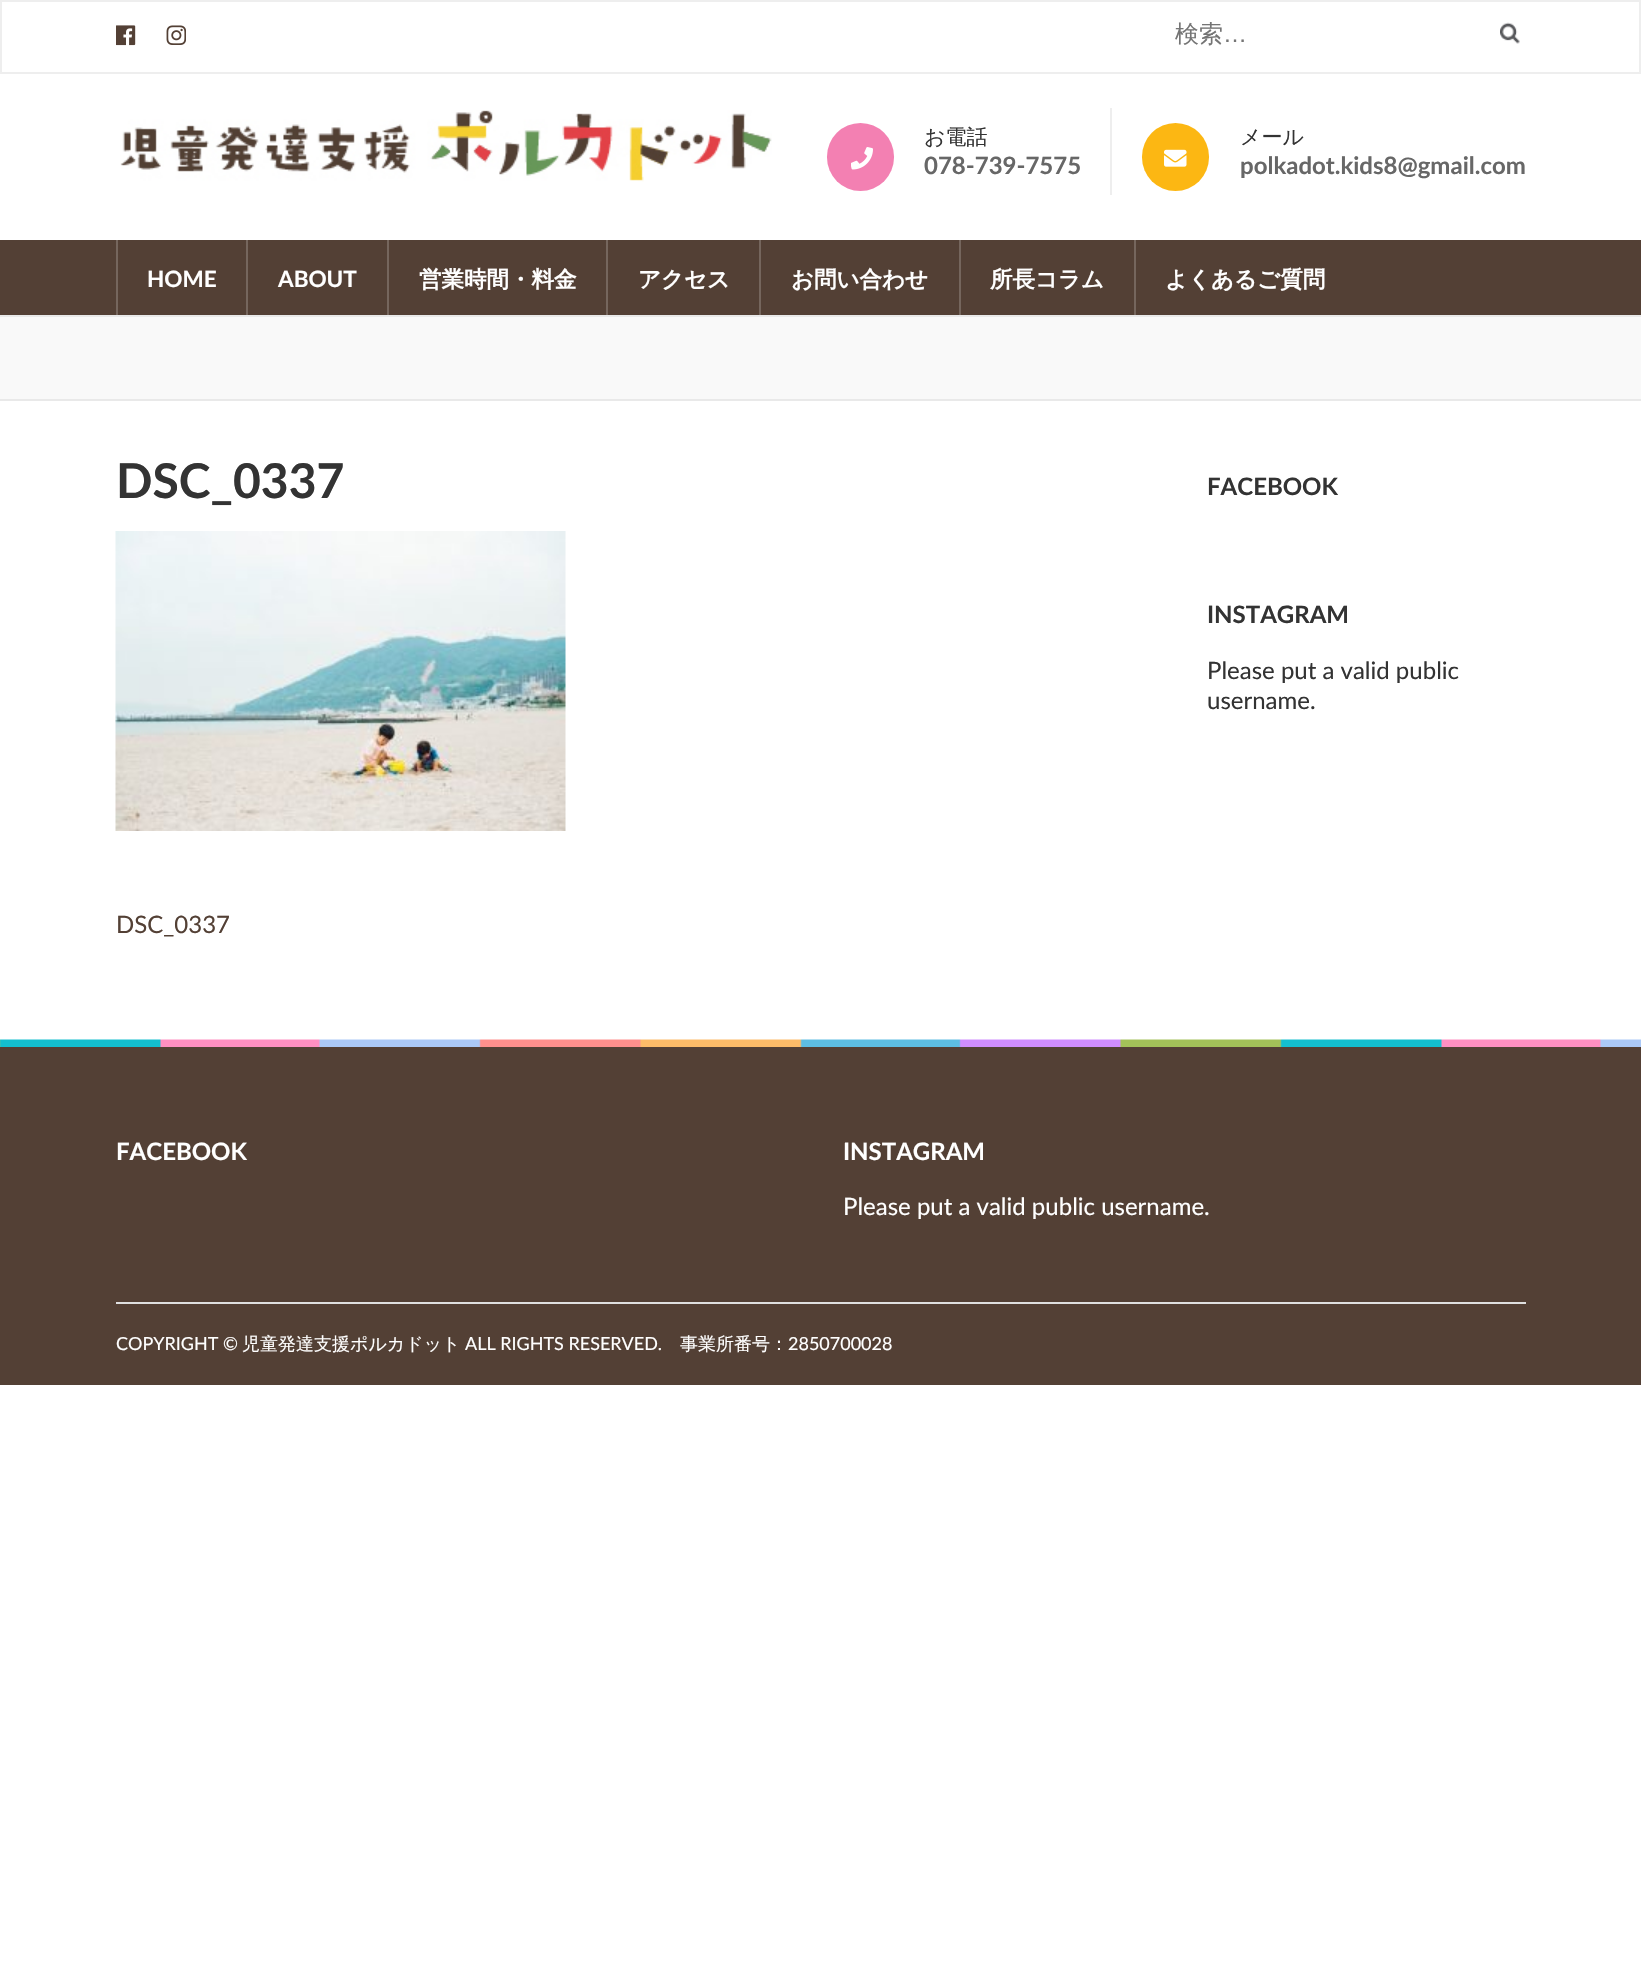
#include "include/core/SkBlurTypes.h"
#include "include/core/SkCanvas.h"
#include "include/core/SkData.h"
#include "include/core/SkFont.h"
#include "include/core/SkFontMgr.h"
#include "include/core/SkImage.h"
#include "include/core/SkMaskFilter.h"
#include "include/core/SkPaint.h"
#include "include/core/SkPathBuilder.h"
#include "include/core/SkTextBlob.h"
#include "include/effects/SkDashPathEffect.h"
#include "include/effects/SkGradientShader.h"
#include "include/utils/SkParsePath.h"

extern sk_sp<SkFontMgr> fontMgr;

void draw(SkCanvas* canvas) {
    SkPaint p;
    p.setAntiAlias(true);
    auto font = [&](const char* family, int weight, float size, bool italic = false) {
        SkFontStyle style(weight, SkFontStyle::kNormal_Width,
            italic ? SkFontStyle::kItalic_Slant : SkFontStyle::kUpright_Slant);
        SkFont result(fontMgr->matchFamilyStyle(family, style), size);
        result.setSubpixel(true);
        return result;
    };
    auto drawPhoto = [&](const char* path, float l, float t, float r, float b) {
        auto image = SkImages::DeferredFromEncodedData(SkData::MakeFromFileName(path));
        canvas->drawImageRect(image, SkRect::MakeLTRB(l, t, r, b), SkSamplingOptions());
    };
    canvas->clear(0xFFFFFFFF);
    p.setStyle(SkPaint::kStroke_Style);
    p.setStrokeWidth(2);
    p.setColor(0xFFEEEEEE);
    canvas->drawRect(SkRect::MakeLTRB(1, 1, 1640, 73), p);
    drawPhoto("media/1.png", 116, 25, 136, 46);
    drawPhoto("media/2.png", 166, 25, 186, 45);
    auto font1 = font("WenQuanYi Zen Hei", 500, 24);
    p.setStyle(SkPaint::kFill_Style);
    p.setColor(0xFF757575);
    canvas->drawString("検索", 1175, 42, font1, p);
    auto font2 = font("Liberation Sans", 400, 24);
    canvas->drawString("…", 1223, 42, font2, p);
    drawPhoto("media/3.png", 1500, 22, 1520, 44);
    drawPhoto("media/4.png", 120, 110, 772, 182);
    p.setColor(0xFFF380B2);
    canvas->drawRoundRect(SkRect::MakeLTRB(827, 123, 894, 191), 33.5f, 33.5f, p);
    auto font3 = font("WenQuanYi Zen Hei", 500, 21);
    p.setColor(0xFF333333);
    canvas->drawString("お電話", 924, 144, font3, p);
    drawPhoto("media/5.png", 851, 147, 873, 170);
    auto font4 = font("Lato", 700, 24);
    p.setColor(0xFF676767);
    canvas->drawString("078-739-7575", 924, 174, font4, p);
    p.setColor(0xFFEEEEEE);
    canvas->drawRect(SkRect::MakeLTRB(1110, 108, 1112, 195), p);
    p.setColor(0xFFFCB713);
    canvas->drawRoundRect(SkRect::MakeLTRB(1142, 123, 1209, 191), 33.5f, 33.5f, p);
    p.setColor(0xFF333333);
    canvas->drawString("メール", 1240, 144, font3, p);
    drawPhoto("media/6.png", 1164, 149, 1187, 167);
    p.setColor(0xFF676767);
    canvas->drawString("polkadot.kids8@gmail.com", 1240, 174, font4, p);
    p.setColor(0xFF534035);
    canvas->drawRect(SkRect::MakeLTRB(0, 240, 1641, 315), p);
    p.setColor(0xFF75665D);
    canvas->drawRect(SkRect::MakeLTRB(116, 240, 118, 315), p);
    auto font5 = font("Lato", 700, 22.5f);
    p.setColor(0xFFFFFFFF);
    canvas->drawString("HOME", 147, 287, font5, p);
    p.setColor(0xFF75665D);
    canvas->drawRect(SkRect::MakeLTRB(246, 240, 248, 315), p);
    p.setColor(0xFFFFFFFF);
    canvas->drawString("ABOUT", 278, 287, font5, p);
    p.setColor(0xFF75665D);
    canvas->drawRect(SkRect::MakeLTRB(387, 240, 389, 315), p);
    auto font6 = font("WenQuanYi Zen Hei", 700, 22.5f);
    p.setColor(0xFFFFFFFF);
    canvas->drawString("営業時間・料金", 419, 287, font6, p);
    p.setColor(0xFF75665D);
    canvas->drawRect(SkRect::MakeLTRB(606, 240, 608, 315), p);
    p.setColor(0xFFFFFFFF);
    canvas->drawString("アクセス", 638, 287, font6, p);
    p.setColor(0xFF75665D);
    canvas->drawRect(SkRect::MakeLTRB(759, 240, 761, 315), p);
    p.setColor(0xFFFFFFFF);
    canvas->drawString("お問い合わせ", 791, 287, font6, p);
    p.setColor(0xFF75665D);
    canvas->drawRect(SkRect::MakeLTRB(959, 240, 961, 315), p);
    p.setColor(0xFFFFFFFF);
    canvas->drawString("所長コラム", 990, 287, font6, p);
    p.setColor(0xFF75665D);
    canvas->drawRect(SkRect::MakeLTRB(1134, 240, 1136, 315), p);
    p.setColor(0xFFFFFFFF);
    canvas->drawString("よくあるご質問", 1165, 287, font6, p);
    {
        const struct { float l, t, r, b; SkColor color; } items[] = {
            {0, 317, 1641, 399, 0xFFF9F9F9},
            {0, 315, 1641, 317, 0xFFE9E9E9},
            {0, 399, 1641, 401, 0xFFE9E9E9},
        };
        for (auto [l, t, r, b, color] : items) {
            p.setColor(color);
            canvas->drawRect(SkRect::MakeLTRB(l, t, r, b), p);
        }
    }
    auto font7 = font("Lato", 700, 48);
    p.setColor(0xFF333333);
    canvas->drawString("DSC_0337", 116, 498, font7, p);
    drawPhoto("media/7.png", 115, 531, 566, 831);
    auto font8 = font("Lato", 400, 24);
    p.setColor(0xFF534035);
    canvas->drawString("DSC_0337", 116, 933, font8, p);
    p.setColor(0xFF333333);
    canvas->drawString("FACEBOOK", 1207, 495, font4, p);
    canvas->drawString("INSTAGRAM", 1207, 623, font4, p);
    canvas->drawString("Please put a valid public", 1207, 679, font8, p);
    canvas->drawString("username.", 1207, 709, font8, p);
    p.setColor(0xFF534035);
    canvas->drawRect(SkRect::MakeLTRB(0, 1047, 1641, 1385), p);
    drawPhoto("media/8.png", 0, 1039, 1641, 1047);
    p.setColor(0xFFE0E0E0);
    canvas->drawRect(SkRect::MakeLTRB(116, 1302, 1526, 1304), p);
    p.setColor(0xFFFFFFFF);
    canvas->drawString("FACEBOOK", 116, 1160, font4, p);
    canvas->drawString("INSTAGRAM", 843, 1160, font4, p);
    canvas->drawString("Please put a valid public username.", 843, 1215, font8, p);
    auto font9 = font("Lato", 400, 18);
    canvas->drawString("COPYRIGHT ©", 116, 1350, font9, p);
    auto font10 = font("WenQuanYi Zen Hei", 500, 18);
    canvas->drawString("児童発達支援ポルカドット", 242, 1350, font10, p);
    canvas->drawString("ALL RIGHTS RESERVED.", 465, 1350, font9, p);
    canvas->drawString("事業所番号：", 680, 1350, font10, p);
    canvas->drawString("2850700028", 788, 1350, font9, p);
}
